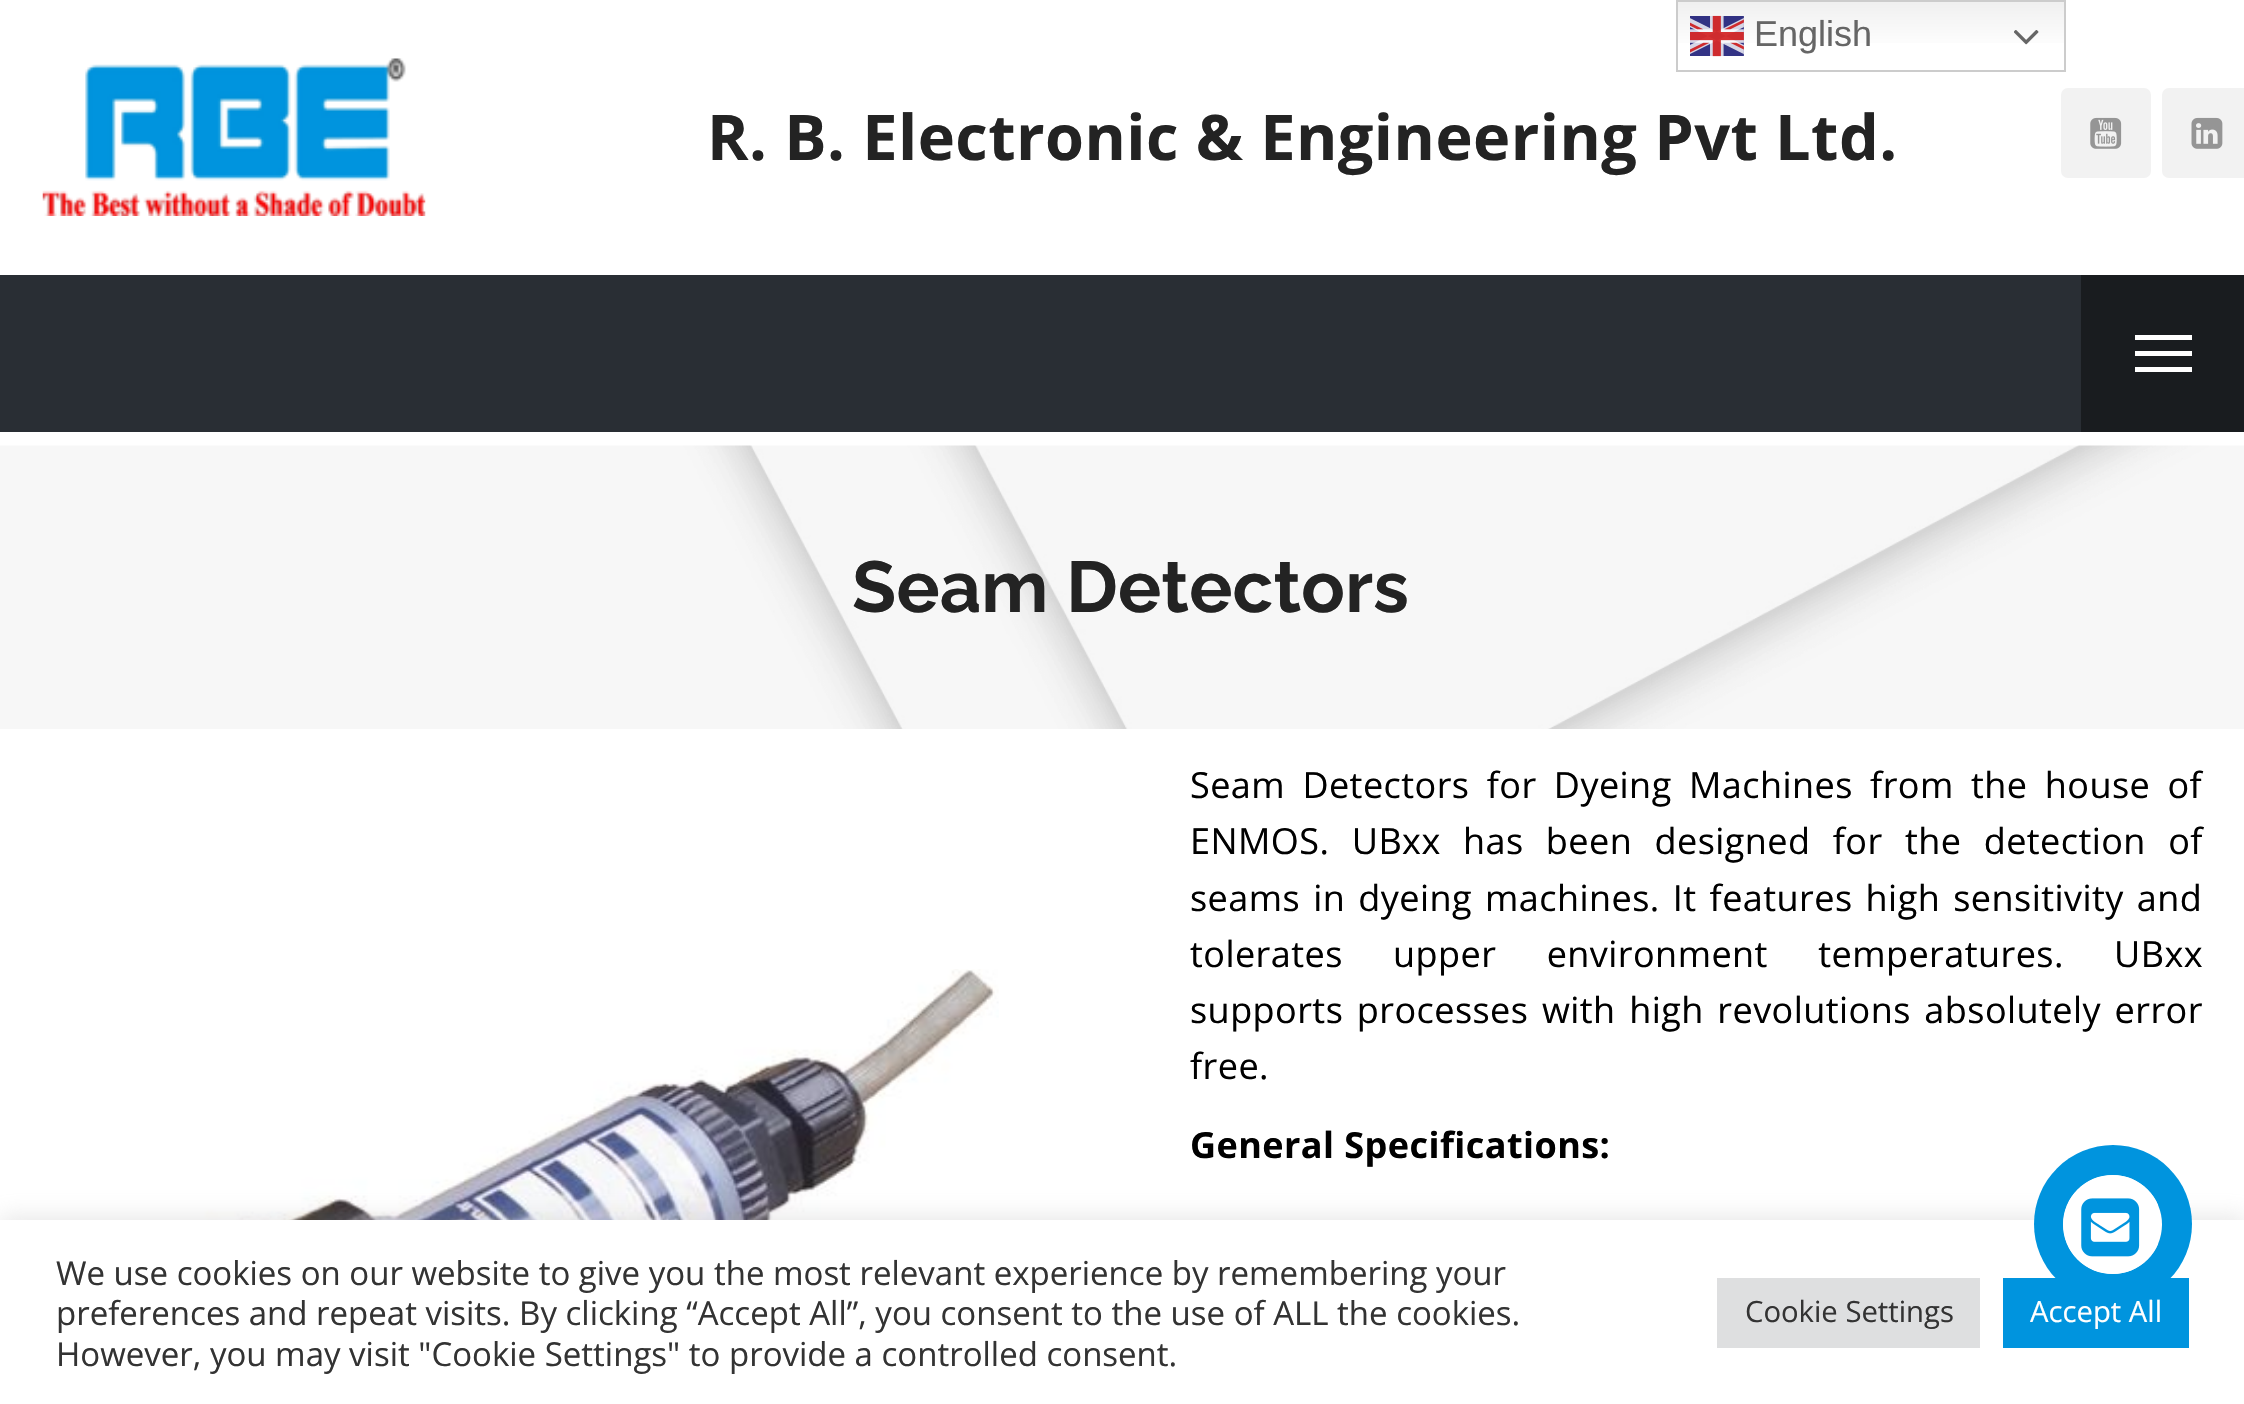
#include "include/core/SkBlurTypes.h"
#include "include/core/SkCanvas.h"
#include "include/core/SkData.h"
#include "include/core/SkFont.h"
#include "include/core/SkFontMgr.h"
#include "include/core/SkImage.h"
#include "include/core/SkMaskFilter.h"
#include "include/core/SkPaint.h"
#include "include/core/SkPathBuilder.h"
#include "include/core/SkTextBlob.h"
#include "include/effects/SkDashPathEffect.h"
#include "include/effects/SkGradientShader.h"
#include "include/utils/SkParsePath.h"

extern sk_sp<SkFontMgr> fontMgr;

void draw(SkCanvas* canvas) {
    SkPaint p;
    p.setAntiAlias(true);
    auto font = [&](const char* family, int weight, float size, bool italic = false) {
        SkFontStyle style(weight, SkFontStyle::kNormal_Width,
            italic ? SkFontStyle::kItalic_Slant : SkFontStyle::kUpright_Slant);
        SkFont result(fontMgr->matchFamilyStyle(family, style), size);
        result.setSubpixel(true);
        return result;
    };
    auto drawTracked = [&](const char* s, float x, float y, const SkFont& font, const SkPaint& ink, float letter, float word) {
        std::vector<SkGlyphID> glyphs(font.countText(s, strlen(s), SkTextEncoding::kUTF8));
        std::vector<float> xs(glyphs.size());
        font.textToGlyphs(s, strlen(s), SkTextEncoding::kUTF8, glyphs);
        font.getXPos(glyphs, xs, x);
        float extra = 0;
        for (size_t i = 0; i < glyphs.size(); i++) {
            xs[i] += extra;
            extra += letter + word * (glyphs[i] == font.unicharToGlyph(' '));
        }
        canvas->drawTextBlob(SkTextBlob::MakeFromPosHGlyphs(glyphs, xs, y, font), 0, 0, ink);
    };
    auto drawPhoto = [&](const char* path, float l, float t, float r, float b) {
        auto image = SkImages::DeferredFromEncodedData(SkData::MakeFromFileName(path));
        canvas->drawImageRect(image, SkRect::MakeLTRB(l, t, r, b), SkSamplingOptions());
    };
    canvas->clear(0xFFFFFFFF);
    {
        const SkColor colors[] = {0xFFEFEFEF, 0xFFFFFFFF};
        const float stops[] = {0, 0.7f};
        const SkPoint ends[] = {{1871, 0}, {1871, 72}};
        p.setShader(SkGradientShader::MakeLinear(ends, colors, stops, 2, SkTileMode::kClamp));
        p.setAlpha(255);
    }
    canvas->drawRect(SkRect::MakeLTRB(1678, 2, 2064, 43), p);
    p.setStyle(SkPaint::kStroke_Style);
    p.setStrokeWidth(2);
    p.setShader(nullptr);
    p.setColor(0xFFCCCCCC);
    canvas->drawRect(SkRect::MakeLTRB(1677, 1, 2065, 71), p);
    drawPhoto("media/1.png", 1690, 15, 1744, 57);
    auto font1 = font("Liberation Sans", 400, 36);
    p.setStyle(SkPaint::kFill_Style);
    p.setColor(0xFF666666);
    canvas->drawString("English", 1754, 46, font1, p);
    drawPhoto("media/2.png", 2014, 30, 2039, 45);
    drawPhoto("media/3.png", 42, 58, 426, 216);
    auto font2 = font("Open Sans", 700, 63);
    p.setColor(0xFF232323);
    drawTracked("R. B. Electronic & Engineering Pvt Ltd.", 707, 160, font2, p, 0.45f, 0);
    p.setColor(0xFFF2F2F2);
    canvas->drawRoundRect(SkRect::MakeLTRB(2061, 88, 2151, 178), 7, 7, p);
    drawPhoto("media/4.png", 2090, 117, 2122, 149);
    canvas->drawRoundRect(SkRect::MakeLTRB(2162, 88, 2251, 178), 7, 7, p);
    drawPhoto("media/5.png", 2191, 117, 2223, 149);
    {
        const struct { float l, t, r, b; SkColor color; } items[] = {
            {0, 275, 2081, 432, 0xFF292E34},
            {2081, 275, 2244, 432, 0xFF191C1F},
            {2135, 335, 2192, 340, 0xFFFFFFFF},
            {2135, 351, 2192, 356, 0xFFFFFFFF},
            {2135, 367, 2192, 372, 0xFFFFFFFF},
        };
        for (auto [l, t, r, b, color] : items) {
            p.setColor(color);
            canvas->drawRect(SkRect::MakeLTRB(l, t, r, b), p);
        }
    }
    drawPhoto("media/6.png", 0, 445, 2244, 729);
    auto font3 = font("Raleway", 700, 72);
    p.setColor(0xFF232323);
    drawTracked("Seam Detectors", 852, 612, font3, p, 0.25f, 0);
    drawPhoto("media/7.png", 84, 969, 999, 1220);
    auto font4 = font("Open Sans", 400, 36);
    p.setColor(0xFF000000);
    drawTracked("Seam Detectors for Dyeing Machines from the house of", 1190, 798, font4, p, 0.45f, 7.5f);
    drawTracked("ENMOS. UBxx has been designed for the detection of", 1190, 854, font4, p, 0.45f, 12.5f);
    drawTracked("seams in dyeing machines. It features high sensitivity and", 1190, 911, font4, p, 0.45f, 3.25f);
    drawTracked("tolerates upper environment temperatures. UBxx", 1190, 967, font4, p, 0.45f, 40.5f);
    drawTracked("supports processes with high revolutions absolutely error", 1190, 1023, font4, p, 0.45f, 3.75f);
    drawTracked("free.", 1190, 1079, font4, p, 0.45f, 0);
    auto font5 = font("Open Sans", 700, 36);
    drawTracked("General Specifications:", 1190, 1158, font5, p, 0.45f, 0);
    p.setColor(0x4DACABAB);
    p.setMaskFilter(SkMaskFilter::MakeBlur(kNormal_SkBlurStyle, 11));
    canvas->drawRect(SkRect::MakeLTRB(0, 1217, 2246, 1402), p);
    p.setMaskFilter(nullptr);
    p.setColor(0xFFFFFFFF);
    canvas->drawRect(SkRect::MakeLTRB(0, 1220, 2244, 1404), p);
    p.setColor(0xFF0094DE);
    canvas->drawRect(SkRect::MakeLTRB(2003, 1278, 2189, 1348), p);
    auto font6 = font("Open Sans", 400, 29.25f);
    p.setColor(0xFFFFFFFF);
    canvas->drawString("Accept All", 2030, 1322, font6, p);
    p.setColor(0xFF0094DE);
    canvas->drawCircle(2113, 1224, 79, p);
    p.setColor(0xFFFFFFFF);
    canvas->drawCircle(2112.5f, 1224.5f, 49.5f, p);
    canvas->save();
    canvas->clipPath(SkPathBuilder().moveTo(2112.5f, 1175).cubicTo(2140, 1175, 2162, 1197, 2162, 1224.5f).cubicTo(2162, 1252, 2140, 1274, 2112.5f, 1274).cubicTo(2085, 1274, 2063, 1252, 2063, 1224.5f).cubicTo(2063, 1197, 2085, 1175, 2112.5f, 1175).close().detach(), true);
    canvas->drawPath(SkPathBuilder().moveTo(2112.5f, 1175).lineTo(2158, 1175).lineTo(2158, 1274).lineTo(2112.5f, 1274).cubicTo(2085, 1274, 2063, 1252, 2063, 1224.5f).cubicTo(2063, 1197, 2085, 1175, 2112.5f, 1175).close().detach(), p);
    canvas->restore();
    drawPhoto("media/8.png", 2081, 1198, 2140, 1257);
    auto font7 = font("Open Sans", 400, 33);
    p.setColor(0xFF333333);
    {
        const struct { const char* s; float x, y; } items[] = {
            {"We use cookies on our website to give you the most relevant experience by remembering your", 56, 1285},
            {"preferences and repeat visits. By clicking “Accept All”, you consent to the use of ALL the cookies.", 56, 1325},
            {"However, you may visit \"Cookie Settings\" to provide a controlled consent.", 56, 1366},
        };
        for (auto [s, x, y] : items) {
            canvas->drawString(s, x, y, font7, p);
        }
    }
    p.setColor(0xFFDEDFE0);
    canvas->drawRect(SkRect::MakeLTRB(1717, 1278, 1980, 1348), p);
    p.setColor(0xFF333333);
    canvas->drawString("Cookie Settings", 1745, 1322, font6, p);
}
